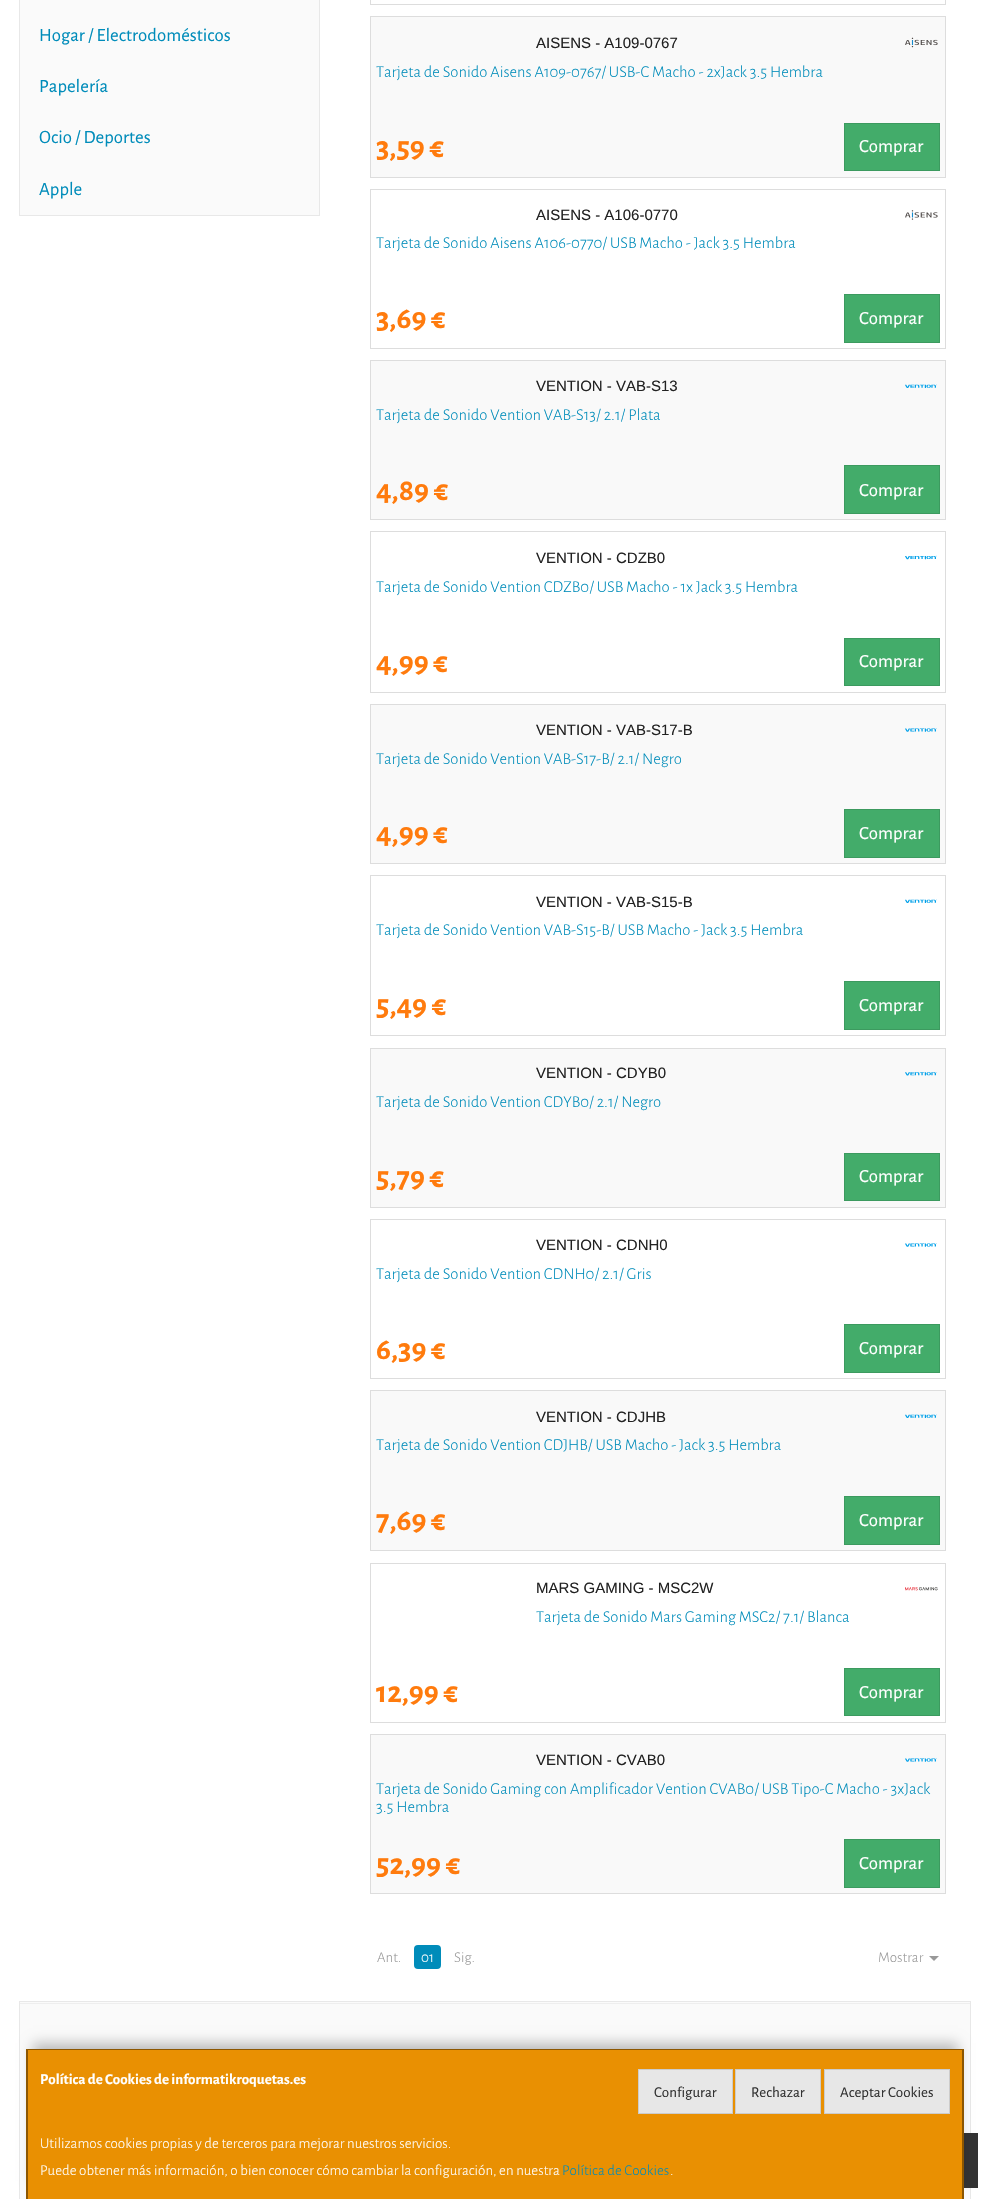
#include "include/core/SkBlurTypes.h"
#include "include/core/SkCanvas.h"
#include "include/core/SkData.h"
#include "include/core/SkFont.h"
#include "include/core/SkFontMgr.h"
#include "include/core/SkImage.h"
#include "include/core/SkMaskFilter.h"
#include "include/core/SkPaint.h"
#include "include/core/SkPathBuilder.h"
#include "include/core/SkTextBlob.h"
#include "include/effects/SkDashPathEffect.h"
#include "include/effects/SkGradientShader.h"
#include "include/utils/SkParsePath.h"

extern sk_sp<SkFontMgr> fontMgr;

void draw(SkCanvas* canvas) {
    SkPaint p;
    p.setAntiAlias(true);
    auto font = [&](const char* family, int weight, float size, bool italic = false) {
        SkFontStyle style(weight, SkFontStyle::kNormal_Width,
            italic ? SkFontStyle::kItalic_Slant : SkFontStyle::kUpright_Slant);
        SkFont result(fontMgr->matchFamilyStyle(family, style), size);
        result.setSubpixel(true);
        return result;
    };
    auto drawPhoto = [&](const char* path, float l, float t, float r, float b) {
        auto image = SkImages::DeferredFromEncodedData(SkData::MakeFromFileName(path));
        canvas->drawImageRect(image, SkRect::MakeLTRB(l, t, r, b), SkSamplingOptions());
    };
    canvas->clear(0xFFFFFFFF);
    p.setColor(0xFFFAFAFA);
    canvas->drawRect(SkRect::MakeLTRB(20, 0, 319, 215), p);
    p.setColor(0xFFE8E8E8);
    canvas->drawPath(SkPathBuilder().moveTo(320, -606).lineTo(320, 216).lineTo(319, 215).lineTo(319, -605).close().detach(), p);
    canvas->drawRect(SkRect::MakeLTRB(19, 215, 320, 216), p);
    canvas->drawPath(SkPathBuilder().moveTo(19, 216).lineTo(19, -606).lineTo(20, -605).lineTo(20, 215).close().detach(), p);
    auto font1 = font("Alegreya Sans", 400, 18.75f);
    p.setColor(0xFF008CBA);
    {
        const struct { const char* s; float x, y; } items[] = {
            {"Hogar / Electrodomésticos", 39, 41},
            {"Papelería", 39, 92},
            {"Ocio / Deportes", 39, 143},
            {"Apple", 39, 195},
        };
        for (auto [s, x, y] : items) {
            canvas->drawString(s, x, y, font1, p);
        }
    }
    p.setStyle(SkPaint::kStroke_Style);
    p.setStrokeWidth(1);
    p.setColor(0xFFDDDDDD);
    canvas->drawRect(SkRect::MakeLTRB(370.5f, -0.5f, 945.5f, 4.5f), p);
    p.setStyle(SkPaint::kFill_Style);
    p.setColor(0xFFF9F9F9);
    canvas->drawRect(SkRect::MakeLTRB(370.5f, 16.5f, 945.5f, 177.5f), p);
    p.setStyle(SkPaint::kStroke_Style);
    p.setColor(0xFFDDDDDD);
    canvas->drawRect(SkRect::MakeLTRB(370.5f, 16.5f, 945.5f, 177.5f), p);
    auto font2 = font("Liberation Sans", 400, 15);
    p.setStyle(SkPaint::kFill_Style);
    p.setColor(0xFF222222);
    canvas->drawString("AISENS - A109-0767", 536, 48, font2, p);
    auto font3 = font("Alegreya Sans", 300, 16.6f);
    p.setColor(0xFF008CBA);
    canvas->drawString("Tarjeta de Sonido Aisens A109-0767/ USB-C Macho - 2xJack 3.5 Hembra", 376, 77, font3, p);
    auto font4 = font("Alegreya Sans", 700, 31);
    p.setColor(0xFFFF7B0D);
    canvas->drawString("3,59 €", 376, 157, font4, p);
    p.setColor(0xFF43AC6A);
    canvas->drawRect(SkRect::MakeLTRB(844.5f, 123.5f, 939.5f, 170.5f), p);
    p.setStyle(SkPaint::kStroke_Style);
    p.setColor(0xFF3C9A5F);
    canvas->drawRect(SkRect::MakeLTRB(844.5f, 123.5f, 939.5f, 170.5f), p);
    p.setStyle(SkPaint::kFill_Style);
    p.setColor(0xFFFFFFFF);
    canvas->drawString("Comprar", 859, 152, font1, p);
    drawPhoto("media/1.png", 905, 37, 938, 48);
    p.setStyle(SkPaint::kStroke_Style);
    p.setColor(0xFFDDDDDD);
    canvas->drawRect(SkRect::MakeLTRB(370.5f, 189.5f, 945.5f, 348.5f), p);
    p.setStyle(SkPaint::kFill_Style);
    p.setColor(0xFF222222);
    canvas->drawString("AISENS - A106-0770", 536, 220, font2, p);
    p.setColor(0xFF008CBA);
    canvas->drawString("Tarjeta de Sonido Aisens A106-0770/ USB Macho - Jack 3.5 Hembra", 376, 248, font3, p);
    p.setColor(0xFFFF7B0D);
    canvas->drawString("3,69 €", 376, 328, font4, p);
    p.setColor(0xFF43AC6A);
    canvas->drawRect(SkRect::MakeLTRB(844.5f, 294.5f, 939.5f, 342.5f), p);
    p.setStyle(SkPaint::kStroke_Style);
    p.setColor(0xFF3C9A5F);
    canvas->drawRect(SkRect::MakeLTRB(844.5f, 294.5f, 939.5f, 342.5f), p);
    p.setStyle(SkPaint::kFill_Style);
    p.setColor(0xFFFFFFFF);
    canvas->drawString("Comprar", 859, 324, font1, p);
    drawPhoto("media/2.png", 905, 210, 938, 220);
    p.setColor(0xFFF9F9F9);
    canvas->drawRect(SkRect::MakeLTRB(370.5f, 360.5f, 945.5f, 519.5f), p);
    p.setStyle(SkPaint::kStroke_Style);
    p.setColor(0xFFDDDDDD);
    canvas->drawRect(SkRect::MakeLTRB(370.5f, 360.5f, 945.5f, 519.5f), p);
    p.setStyle(SkPaint::kFill_Style);
    p.setColor(0xFF222222);
    canvas->drawString("VENTION - VAB-S13", 536, 391, font2, p);
    p.setColor(0xFF008CBA);
    canvas->drawString("Tarjeta de Sonido Vention VAB-S13/ 2.1/ Plata", 376, 420, font3, p);
    p.setColor(0xFFFF7B0D);
    canvas->drawString("4,89 €", 376, 500, font4, p);
    p.setColor(0xFF43AC6A);
    canvas->drawRect(SkRect::MakeLTRB(844.5f, 465.5f, 939.5f, 513.5f), p);
    p.setStyle(SkPaint::kStroke_Style);
    p.setColor(0xFF3C9A5F);
    canvas->drawRect(SkRect::MakeLTRB(844.5f, 465.5f, 939.5f, 513.5f), p);
    p.setStyle(SkPaint::kFill_Style);
    p.setColor(0xFFFFFFFF);
    canvas->drawString("Comprar", 859, 496, font1, p);
    drawPhoto("media/3.png", 905, 384, 937, 388);
    p.setStyle(SkPaint::kStroke_Style);
    p.setColor(0xFFDDDDDD);
    canvas->drawRect(SkRect::MakeLTRB(370.5f, 531.5f, 945.5f, 692.5f), p);
    p.setStyle(SkPaint::kFill_Style);
    p.setColor(0xFF222222);
    canvas->drawString("VENTION - CDZB0", 536, 563, font2, p);
    p.setColor(0xFF008CBA);
    canvas->drawString("Tarjeta de Sonido Vention CDZB0/ USB Macho - 1x Jack 3.5 Hembra", 376, 592, font3, p);
    p.setColor(0xFFFF7B0D);
    canvas->drawString("4,99 €", 376, 672, font4, p);
    p.setColor(0xFF43AC6A);
    canvas->drawRect(SkRect::MakeLTRB(844.5f, 638.5f, 939.5f, 685.5f), p);
    p.setStyle(SkPaint::kStroke_Style);
    p.setColor(0xFF3C9A5F);
    canvas->drawRect(SkRect::MakeLTRB(844.5f, 638.5f, 939.5f, 685.5f), p);
    p.setStyle(SkPaint::kFill_Style);
    p.setColor(0xFFFFFFFF);
    canvas->drawString("Comprar", 859, 667, font1, p);
    drawPhoto("media/4.png", 905, 555, 937, 560);
    p.setColor(0xFFF9F9F9);
    canvas->drawRect(SkRect::MakeLTRB(370.5f, 704.5f, 945.5f, 863.5f), p);
    p.setStyle(SkPaint::kStroke_Style);
    p.setColor(0xFFDDDDDD);
    canvas->drawRect(SkRect::MakeLTRB(370.5f, 704.5f, 945.5f, 863.5f), p);
    p.setStyle(SkPaint::kFill_Style);
    p.setColor(0xFF222222);
    canvas->drawString("VENTION - VAB-S17-B", 536, 735, font2, p);
    p.setColor(0xFF008CBA);
    canvas->drawString("Tarjeta de Sonido Vention VAB-S17-B/ 2.1/ Negro", 376, 764, font3, p);
    p.setColor(0xFFFF7B0D);
    canvas->drawString("4,99 €", 376, 843, font4, p);
    p.setColor(0xFF43AC6A);
    canvas->drawRect(SkRect::MakeLTRB(844.5f, 809.5f, 939.5f, 857.5f), p);
    p.setStyle(SkPaint::kStroke_Style);
    p.setColor(0xFF3C9A5F);
    canvas->drawRect(SkRect::MakeLTRB(844.5f, 809.5f, 939.5f, 857.5f), p);
    p.setStyle(SkPaint::kFill_Style);
    p.setColor(0xFFFFFFFF);
    canvas->drawString("Comprar", 859, 839, font1, p);
    drawPhoto("media/5.png", 905, 728, 937, 732);
    p.setStyle(SkPaint::kStroke_Style);
    p.setColor(0xFFDDDDDD);
    canvas->drawRect(SkRect::MakeLTRB(370.5f, 875.5f, 945.5f, 1035.5f), p);
    p.setStyle(SkPaint::kFill_Style);
    p.setColor(0xFF222222);
    canvas->drawString("VENTION - VAB-S15-B", 536, 907, font2, p);
    p.setColor(0xFF008CBA);
    canvas->drawString("Tarjeta de Sonido Vention VAB-S15-B/ USB Macho - Jack 3.5 Hembra", 376, 935, font3, p);
    p.setColor(0xFFFF7B0D);
    canvas->drawString("5,49 €", 376, 1015, font4, p);
    p.setColor(0xFF43AC6A);
    canvas->drawRect(SkRect::MakeLTRB(844.5f, 981.5f, 939.5f, 1029.5f), p);
    p.setStyle(SkPaint::kStroke_Style);
    p.setColor(0xFF3C9A5F);
    canvas->drawRect(SkRect::MakeLTRB(844.5f, 981.5f, 939.5f, 1029.5f), p);
    p.setStyle(SkPaint::kFill_Style);
    p.setColor(0xFFFFFFFF);
    canvas->drawString("Comprar", 859, 1011, font1, p);
    drawPhoto("media/6.png", 905, 899, 937, 903);
    p.setColor(0xFFF9F9F9);
    canvas->drawRect(SkRect::MakeLTRB(370.5f, 1048.5f, 945.5f, 1207.5f), p);
    p.setStyle(SkPaint::kStroke_Style);
    p.setColor(0xFFDDDDDD);
    canvas->drawRect(SkRect::MakeLTRB(370.5f, 1048.5f, 945.5f, 1207.5f), p);
    p.setStyle(SkPaint::kFill_Style);
    p.setColor(0xFF222222);
    canvas->drawString("VENTION - CDYB0", 536, 1078, font2, p);
    p.setColor(0xFF008CBA);
    canvas->drawString("Tarjeta de Sonido Vention CDYB0/ 2.1/ Negro", 376, 1107, font3, p);
    p.setColor(0xFFFF7B0D);
    canvas->drawString("5,79 €", 376, 1187, font4, p);
    p.setColor(0xFF43AC6A);
    canvas->drawRect(SkRect::MakeLTRB(844.5f, 1153.5f, 939.5f, 1200.5f), p);
    p.setStyle(SkPaint::kStroke_Style);
    p.setColor(0xFF3C9A5F);
    canvas->drawRect(SkRect::MakeLTRB(844.5f, 1153.5f, 939.5f, 1200.5f), p);
    p.setStyle(SkPaint::kFill_Style);
    p.setColor(0xFFFFFFFF);
    canvas->drawString("Comprar", 859, 1182, font1, p);
    drawPhoto("media/7.png", 905, 1072, 937, 1076);
    p.setStyle(SkPaint::kStroke_Style);
    p.setColor(0xFFDDDDDD);
    canvas->drawRect(SkRect::MakeLTRB(370.5f, 1219.5f, 945.5f, 1378.5f), p);
    p.setStyle(SkPaint::kFill_Style);
    p.setColor(0xFF222222);
    canvas->drawString("VENTION - CDNH0", 536, 1250, font2, p);
    p.setColor(0xFF008CBA);
    canvas->drawString("Tarjeta de Sonido Vention CDNH0/ 2.1/ Gris", 376, 1279, font3, p);
    p.setColor(0xFFFF7B0D);
    canvas->drawString("6,39 €", 376, 1359, font4, p);
    p.setColor(0xFF43AC6A);
    canvas->drawRect(SkRect::MakeLTRB(844.5f, 1324.5f, 939.5f, 1372.5f), p);
    p.setStyle(SkPaint::kStroke_Style);
    p.setColor(0xFF3C9A5F);
    canvas->drawRect(SkRect::MakeLTRB(844.5f, 1324.5f, 939.5f, 1372.5f), p);
    p.setStyle(SkPaint::kFill_Style);
    p.setColor(0xFFFFFFFF);
    canvas->drawString("Comprar", 859, 1354, font1, p);
    drawPhoto("media/8.png", 905, 1243, 937, 1247);
    p.setColor(0xFFF9F9F9);
    canvas->drawRect(SkRect::MakeLTRB(370.5f, 1390.5f, 945.5f, 1550.5f), p);
    p.setStyle(SkPaint::kStroke_Style);
    p.setColor(0xFFDDDDDD);
    canvas->drawRect(SkRect::MakeLTRB(370.5f, 1390.5f, 945.5f, 1550.5f), p);
    p.setStyle(SkPaint::kFill_Style);
    p.setColor(0xFF222222);
    canvas->drawString("VENTION - CDJHB", 536, 1422, font2, p);
    p.setColor(0xFF008CBA);
    canvas->drawString("Tarjeta de Sonido Vention CDJHB/ USB Macho - Jack 3.5 Hembra", 376, 1450, font3, p);
    p.setColor(0xFFFF7B0D);
    canvas->drawString("7,69 €", 376, 1530, font4, p);
    p.setColor(0xFF43AC6A);
    canvas->drawRect(SkRect::MakeLTRB(844.5f, 1496.5f, 939.5f, 1544.5f), p);
    p.setStyle(SkPaint::kStroke_Style);
    p.setColor(0xFF3C9A5F);
    canvas->drawRect(SkRect::MakeLTRB(844.5f, 1496.5f, 939.5f, 1544.5f), p);
    p.setStyle(SkPaint::kFill_Style);
    p.setColor(0xFFFFFFFF);
    canvas->drawString("Comprar", 859, 1526, font1, p);
    drawPhoto("media/3.png", 905, 1414, 937, 1418);
    p.setStyle(SkPaint::kStroke_Style);
    p.setColor(0xFFDDDDDD);
    canvas->drawRect(SkRect::MakeLTRB(370.5f, 1563.5f, 945.5f, 1722.5f), p);
    p.setStyle(SkPaint::kFill_Style);
    p.setColor(0xFF222222);
    canvas->drawString("MARS GAMING - MSC2W", 536, 1593, font2, p);
    p.setColor(0xFF008CBA);
    canvas->drawString("Tarjeta de Sonido Mars Gaming MSC2/ 7.1/ Blanca", 536, 1622, font3, p);
    p.setColor(0xFFFF7B0D);
    canvas->drawString("12,99 €", 376, 1702, font4, p);
    p.setColor(0xFF43AC6A);
    canvas->drawRect(SkRect::MakeLTRB(844.5f, 1668.5f, 939.5f, 1715.5f), p);
    p.setStyle(SkPaint::kStroke_Style);
    p.setColor(0xFF3C9A5F);
    canvas->drawRect(SkRect::MakeLTRB(844.5f, 1668.5f, 939.5f, 1715.5f), p);
    p.setStyle(SkPaint::kFill_Style);
    p.setColor(0xFFFFFFFF);
    canvas->drawString("Comprar", 859, 1698, font1, p);
    drawPhoto("media/9.png", 905, 1587, 938, 1591);
    p.setColor(0xFFF9F9F9);
    canvas->drawRect(SkRect::MakeLTRB(370.5f, 1734.5f, 945.5f, 1893.5f), p);
    p.setStyle(SkPaint::kStroke_Style);
    p.setColor(0xFFDDDDDD);
    canvas->drawRect(SkRect::MakeLTRB(370.5f, 1734.5f, 945.5f, 1893.5f), p);
    p.setStyle(SkPaint::kFill_Style);
    p.setColor(0xFF222222);
    canvas->drawString("VENTION - CVAB0", 536, 1765, font2, p);
    p.setColor(0xFF008CBA);
    canvas->drawString("Tarjeta de Sonido Gaming con Amplificador Vention CVAB0/ USB Tipo-C Macho - 3xJack", 376, 1794, font3, p);
    canvas->drawString("3.5 Hembra", 376, 1812, font3, p);
    p.setColor(0xFFFF7B0D);
    canvas->drawString("52,99 €", 376, 1874, font4, p);
    p.setColor(0xFF43AC6A);
    canvas->drawRect(SkRect::MakeLTRB(844.5f, 1839.5f, 939.5f, 1887.5f), p);
    p.setStyle(SkPaint::kStroke_Style);
    p.setColor(0xFF3C9A5F);
    canvas->drawRect(SkRect::MakeLTRB(844.5f, 1839.5f, 939.5f, 1887.5f), p);
    p.setStyle(SkPaint::kFill_Style);
    p.setColor(0xFFFFFFFF);
    canvas->drawString("Comprar", 859, 1869, font1, p);
    drawPhoto("media/5.png", 905, 1758, 937, 1762);
    auto font5 = font("Alegreya Sans", 300, 15);
    p.setColor(0xFF999999);
    canvas->drawString("Ant.", 377, 1962, font5, p);
    p.setColor(0xFF008CBA);
    canvas->drawRoundRect(SkRect::MakeLTRB(414, 1945, 441, 1969), 4, 4, p);
    p.setColor(0xFFFFFFFF);
    canvas->drawString("01", 421, 1962, font5, p);
    p.setColor(0xFF999999);
    canvas->drawString("Sig.", 454, 1962, font5, p);
    canvas->drawString("Mostrar", 878, 1962, font5, p);
    canvas->drawPath(SkPathBuilder().moveTo(929, 1956).lineTo(939, 1956).lineTo(934, 1961).close().detach(), p);
    p.setColor(0xFFFAFAFA);
    canvas->drawRect(SkRect::MakeLTRB(20, 2002, 970, 2199), p);
    p.setColor(0xFFEEEEEE);
    canvas->drawRect(SkRect::MakeLTRB(20, 2003, 970, 2004), p);
    p.setStyle(SkPaint::kStroke_Style);
    p.setColor(0xFFE8E8E8);
    canvas->drawRect(SkRect::MakeLTRB(19.5f, 2001.5f, 970.5f, 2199.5f), p);
    p.setStyle(SkPaint::kFill_Style);
    p.setColor(0xFF333333);
    canvas->drawRect(SkRect::MakeLTRB(964, 2133, 978, 2188), p);
    p.setColor(0x40000000);
    p.setMaskFilter(SkMaskFilter::MakeBlur(kNormal_SkBlurStyle, 6));
    canvas->drawRect(SkRect::MakeLTRB(33, 2043, 958, 2181), p);
    p.setMaskFilter(nullptr);
    p.setColor(0xFFE99002);
    canvas->drawRect(SkRect::MakeLTRB(26, 2049, 964, 2199), p);
    p.setColor(0xFF8C5601);
    canvas->drawPath(SkPathBuilder().moveTo(26, 2049).lineTo(964, 2049).lineTo(962, 2050).lineTo(28, 2050).close().detach(), p);
    p.setColor(0x66000000);
    canvas->drawPath(SkPathBuilder().moveTo(964, 2049).lineTo(964, 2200).lineTo(962, 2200).lineTo(962, 2050).close().detach(), p);
    canvas->drawPath(SkPathBuilder().moveTo(26, 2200).lineTo(26, 2049).lineTo(28, 2050).lineTo(28, 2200).close().detach(), p);
    auto font6 = font("Alegreya Sans", 700, 15);
    p.setColor(0xFFFFFFFF);
    canvas->drawString("Política de Cookies de informatikroquetas.es", 40, 2084, font6, p);
    p.setColor(0xFFE7E7E7);
    canvas->drawRect(SkRect::MakeLTRB(638.5f, 2069.5f, 732.5f, 2113.5f), p);
    p.setStyle(SkPaint::kStroke_Style);
    p.setColor(0xFFCCCCCC);
    canvas->drawRect(SkRect::MakeLTRB(638.5f, 2069.5f, 732.5f, 2113.5f), p);
    auto font7 = font("Alegreya Sans", 400, 15);
    p.setStyle(SkPaint::kFill_Style);
    p.setColor(0xFF333333);
    canvas->drawString("Configurar", 654, 2097, font7, p);
    p.setColor(0xFFE7E7E7);
    canvas->drawRect(SkRect::MakeLTRB(735.5f, 2069.5f, 820.5f, 2113.5f), p);
    p.setStyle(SkPaint::kStroke_Style);
    p.setColor(0xFFCCCCCC);
    canvas->drawRect(SkRect::MakeLTRB(735.5f, 2069.5f, 820.5f, 2113.5f), p);
    p.setStyle(SkPaint::kFill_Style);
    p.setColor(0xFF333333);
    canvas->drawString("Rechazar", 751, 2097, font7, p);
    p.setColor(0xFFE7E7E7);
    canvas->drawRect(SkRect::MakeLTRB(824.5f, 2069.5f, 949.5f, 2113.5f), p);
    p.setStyle(SkPaint::kStroke_Style);
    p.setColor(0xFFCCCCCC);
    canvas->drawRect(SkRect::MakeLTRB(824.5f, 2069.5f, 949.5f, 2113.5f), p);
    p.setStyle(SkPaint::kFill_Style);
    p.setColor(0xFF333333);
    canvas->drawString("Aceptar Cookies", 840, 2097, font7, p);
    p.setColor(0xFFFFFFFF);
    canvas->drawString("Utilizamos cookies propias y de terceros para mejorar nuestros servicios.", 40, 2148, font5, p);
    canvas->drawString("Puede obtener más información, o bien conocer cómo cambiar la configuración, en nuestra", 40, 2175, font5, p);
    p.setColor(0xFF008CBA);
    canvas->drawString("Política de Cookies", 562, 2175, font5, p);
    p.setColor(0xFFFFFFFF);
    canvas->drawString(".", 670, 2175, font5, p);
}
